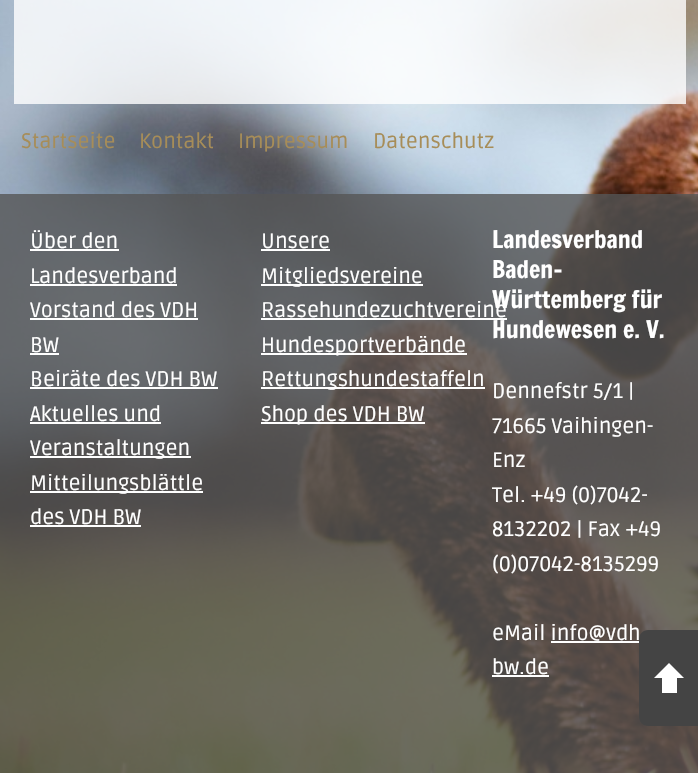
#include "include/core/SkBlurTypes.h"
#include "include/core/SkCanvas.h"
#include "include/core/SkData.h"
#include "include/core/SkFont.h"
#include "include/core/SkFontMgr.h"
#include "include/core/SkImage.h"
#include "include/core/SkMaskFilter.h"
#include "include/core/SkPaint.h"
#include "include/core/SkPathBuilder.h"
#include "include/core/SkTextBlob.h"
#include "include/effects/SkDashPathEffect.h"
#include "include/effects/SkGradientShader.h"
#include "include/utils/SkParsePath.h"

extern sk_sp<SkFontMgr> fontMgr;

void draw(SkCanvas* canvas) {
    SkPaint p;
    p.setAntiAlias(true);
    auto font = [&](const char* family, int weight, float size, bool italic = false) {
        SkFontStyle style(weight, SkFontStyle::kNormal_Width,
            italic ? SkFontStyle::kItalic_Slant : SkFontStyle::kUpright_Slant);
        SkFont result(fontMgr->matchFamilyStyle(family, style), size);
        result.setSubpixel(true);
        return result;
    };
    auto drawPhoto = [&](const char* path, float l, float t, float r, float b) {
        auto image = SkImages::DeferredFromEncodedData(SkData::MakeFromFileName(path));
        canvas->drawImageRect(image, SkRect::MakeLTRB(l, t, r, b), SkSamplingOptions());
    };
    canvas->clear(0xFFFFFFFF);
    drawPhoto("media/1.png", 0, 0, 698, 773);
    p.setColor(0xCCFFFFFF);
    canvas->drawRect(SkRect::MakeLTRB(14, 0, 686, 104), p);
    auto font1 = font("Ruda", 400, 21);
    p.setColor(0xFFA78D58);
    {
        const struct { const char* s; float x, y; } items[] = {
            {"Startseite", 21, 148},
            {"Kontakt", 139, 148},
            {"Impressum", 238, 148},
            {"Datenschutz", 373, 148},
        };
        for (auto [s, x, y] : items) {
            canvas->drawString(s, x, y, font1, p);
        }
    }
    p.setColor(0xCC555555);
    canvas->drawRect(SkRect::MakeLTRB(0, 194, 698, 773), p);
    p.setColor(0xFFFFFFFF);
    canvas->drawString("Über den", 30, 248, font1, p);
    canvas->drawRect(SkRect::MakeLTRB(30, 249, 119, 251), p);
    canvas->drawString("Landesverband", 30, 283, font1, p);
    canvas->drawRect(SkRect::MakeLTRB(30, 284, 177, 286), p);
    canvas->drawString("Vorstand des VDH", 30, 317, font1, p);
    canvas->drawRect(SkRect::MakeLTRB(30, 318, 198, 320), p);
    canvas->drawString("BW", 30, 352, font1, p);
    canvas->drawRect(SkRect::MakeLTRB(30, 353, 59, 355), p);
    canvas->drawString("Beiräte des VDH BW", 30, 386, font1, p);
    canvas->drawRect(SkRect::MakeLTRB(30, 387, 218, 389), p);
    canvas->drawString("Aktuelles und", 30, 421, font1, p);
    canvas->drawRect(SkRect::MakeLTRB(30, 422, 161, 424), p);
    canvas->drawRect(SkRect::MakeLTRB(30, 456, 191, 458), p);
    canvas->drawString("Veranstaltungen", 30, 455, font1, p);
    canvas->drawRect(SkRect::MakeLTRB(30, 491, 203, 493), p);
    canvas->drawString("Mitteilungsblättle", 30, 490, font1, p);
    canvas->drawString("des VDH BW", 30, 524, font1, p);
    canvas->drawRect(SkRect::MakeLTRB(30, 525, 141, 527), p);
    canvas->drawString("Unsere", 261, 248, font1, p);
    canvas->drawRect(SkRect::MakeLTRB(261, 249, 330, 251), p);
    canvas->drawRect(SkRect::MakeLTRB(261, 284, 423, 286), p);
    canvas->drawString("Mitgliedsvereine", 261, 283, font1, p);
    canvas->drawString("Rassehundezuchtvereine", 261, 317, font1, p);
    canvas->drawRect(SkRect::MakeLTRB(261, 318, 507, 320), p);
    canvas->drawRect(SkRect::MakeLTRB(261, 353, 467, 355), p);
    canvas->drawString("Hundesportverbände", 261, 352, font1, p);
    canvas->drawRect(SkRect::MakeLTRB(261, 387, 485, 389), p);
    canvas->drawString("Rettungshundestaffeln", 261, 386, font1, p);
    canvas->drawRect(SkRect::MakeLTRB(261, 422, 425, 424), p);
    canvas->drawString("Shop des VDH BW", 261, 421, font1, p);
    auto font2 = font("Francois One", 400, 24);
    {
        const struct { const char* s; float x, y; } items[] = {
            {"Landesverband", 492, 248},
            {"Baden-", 492, 278},
            {"Württemberg für", 492, 308},
            {"Hundewesen e. V.", 492, 338},
        };
        for (auto [s, x, y] : items) {
            canvas->drawString(s, x, y, font2, p);
        }
    }
    {
        const struct { const char* s; float x, y; } items[] = {
            {"Dennefstr 5/1 |", 492, 398},
            {"71665 Vaihingen-", 492, 433},
            {"Enz", 492, 467},
            {"Tel. +49 (0)7042-", 492, 502},
            {"8132202 | Fax +49", 492, 536},
            {"(0)07042-8135299", 492, 571},
            {"eMail info@vdh", 492, 640},
            {"bw.de", 492, 674},
        };
        for (auto [s, x, y] : items) {
            canvas->drawString(s, x, y, font1, p);
        }
    }
    canvas->drawRect(SkRect::MakeLTRB(551, 641, 639, 643), p);
    canvas->drawRect(SkRect::MakeLTRB(492, 675, 549, 677), p);
    p.setColor(0xFF444444);
    canvas->drawPath(SkPathBuilder().moveTo(648, 630).lineTo(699, 630).lineTo(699, 726).lineTo(648, 726).cubicTo(643, 726, 639, 722, 639, 717).lineTo(639, 639).cubicTo(639, 634, 643, 630, 648, 630).close().detach(), p);
    p.setColor(0xFFFFFFFF);
    canvas->drawPath(SkPathBuilder().moveTo(684, 678).lineTo(654, 678).lineTo(669, 663).close().detach(), p);
    canvas->drawRect(SkRect::MakeLTRB(662, 678, 677, 693), p);
}
